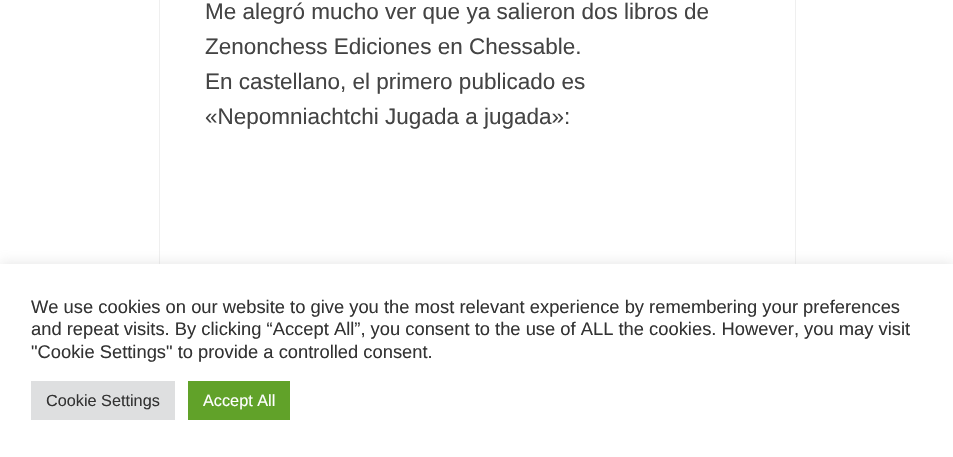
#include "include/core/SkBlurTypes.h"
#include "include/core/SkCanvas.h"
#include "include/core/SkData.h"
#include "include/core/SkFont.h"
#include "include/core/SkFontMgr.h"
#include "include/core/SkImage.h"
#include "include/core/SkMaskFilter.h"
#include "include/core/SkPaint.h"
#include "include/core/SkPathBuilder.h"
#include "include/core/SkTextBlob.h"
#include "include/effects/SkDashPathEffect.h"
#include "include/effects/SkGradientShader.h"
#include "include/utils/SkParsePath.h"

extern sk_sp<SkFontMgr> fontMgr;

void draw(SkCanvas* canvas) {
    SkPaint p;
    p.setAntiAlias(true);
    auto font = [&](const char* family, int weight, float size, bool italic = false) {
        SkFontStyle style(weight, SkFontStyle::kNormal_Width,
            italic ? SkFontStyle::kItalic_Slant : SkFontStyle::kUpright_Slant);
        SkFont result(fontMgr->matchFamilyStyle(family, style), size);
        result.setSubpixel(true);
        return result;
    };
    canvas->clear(0xFFFFFFFF);
    p.setStyle(SkPaint::kStroke_Style);
    p.setStrokeWidth(1);
    p.setColor(0xFFEFEFEF);
    canvas->drawRect(SkRect::MakeLTRB(159.5f, -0.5f, 795.5f, 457.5f), p);
    auto font1 = font("Liberation Sans", 400, 22.5f);
    p.setStyle(SkPaint::kFill_Style);
    p.setColor(0xFF444444);
    {
        const struct { const char* s; float x, y; } items[] = {
            {"Me alegró mucho ver que ya salieron dos libros de", 205, 19},
            {"Zenonchess Ediciones en Chessable.", 205, 54},
            {"En castellano, el primero publicado es", 205, 89},
            {"«Nepomniachtchi Jugada a jugada»:", 205, 124},
        };
        for (auto [s, x, y] : items) {
            canvas->drawString(s, x, y, font1, p);
        }
    }
    p.setColor(0x4DACABAB);
    p.setMaskFilter(SkMaskFilter::MakeBlur(kNormal_SkBlurStyle, 6));
    canvas->drawRect(SkRect::MakeLTRB(0, 263, 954, 456), p);
    p.setMaskFilter(nullptr);
    p.setColor(0xFFFFFFFF);
    canvas->drawRect(SkRect::MakeLTRB(0, 264, 953, 457), p);
    auto font2 = font("Liberation Sans", 400, 18.35f);
    p.setColor(0xFF333333);
    {
        const struct { const char* s; float x, y; } items[] = {
            {"We use cookies on our website to give you the most relevant experience by remembering your preferences", 31, 313},
            {"and repeat visits. By clicking “Accept All”, you consent to the use of ALL the cookies. However, you may visit", 31, 335},
            {"\"Cookie Settings\" to provide a controlled consent.", 31, 358},
        };
        for (auto [s, x, y] : items) {
            canvas->drawString(s, x, y, font2, p);
        }
    }
    p.setColor(0xFFDEDFE0);
    canvas->drawRect(SkRect::MakeLTRB(31, 381, 175, 420), p);
    auto font3 = font("Liberation Sans", 400, 16.25f);
    p.setColor(0xFF333333);
    canvas->drawString("Cookie Settings", 46, 406, font3, p);
    p.setColor(0xFF61A229);
    canvas->drawRect(SkRect::MakeLTRB(188, 381, 290, 420), p);
    p.setColor(0xFFFFFFFF);
    canvas->drawString("Accept All", 203, 406, font3, p);
}
